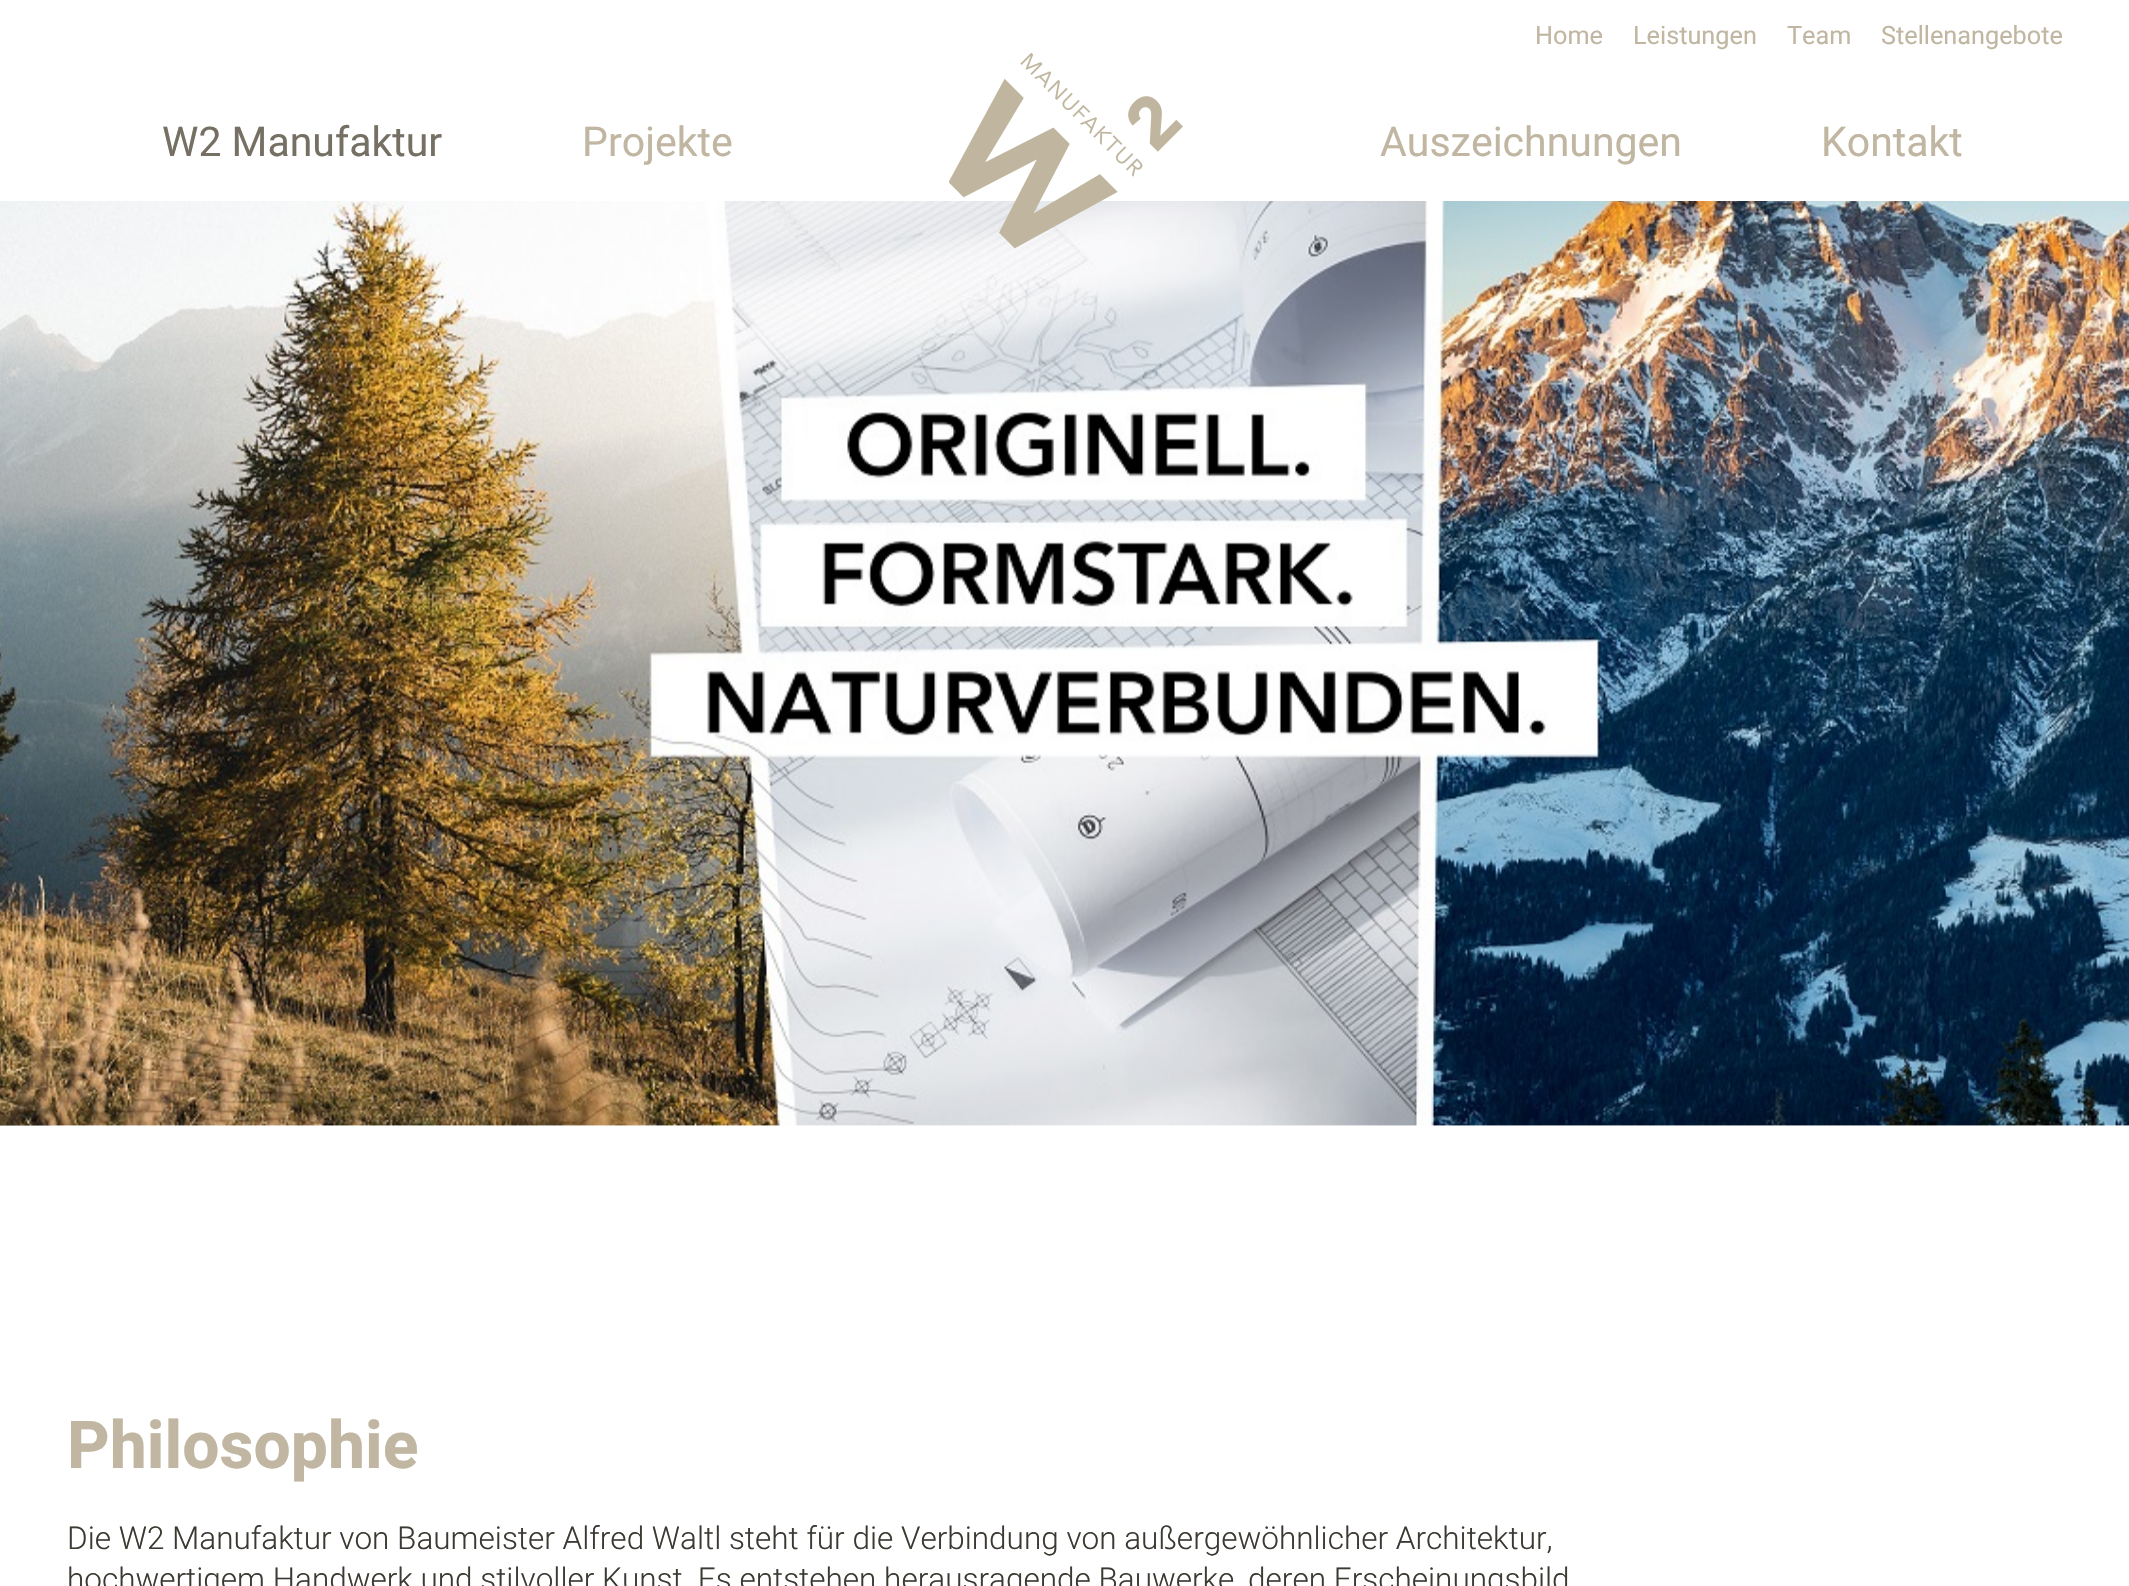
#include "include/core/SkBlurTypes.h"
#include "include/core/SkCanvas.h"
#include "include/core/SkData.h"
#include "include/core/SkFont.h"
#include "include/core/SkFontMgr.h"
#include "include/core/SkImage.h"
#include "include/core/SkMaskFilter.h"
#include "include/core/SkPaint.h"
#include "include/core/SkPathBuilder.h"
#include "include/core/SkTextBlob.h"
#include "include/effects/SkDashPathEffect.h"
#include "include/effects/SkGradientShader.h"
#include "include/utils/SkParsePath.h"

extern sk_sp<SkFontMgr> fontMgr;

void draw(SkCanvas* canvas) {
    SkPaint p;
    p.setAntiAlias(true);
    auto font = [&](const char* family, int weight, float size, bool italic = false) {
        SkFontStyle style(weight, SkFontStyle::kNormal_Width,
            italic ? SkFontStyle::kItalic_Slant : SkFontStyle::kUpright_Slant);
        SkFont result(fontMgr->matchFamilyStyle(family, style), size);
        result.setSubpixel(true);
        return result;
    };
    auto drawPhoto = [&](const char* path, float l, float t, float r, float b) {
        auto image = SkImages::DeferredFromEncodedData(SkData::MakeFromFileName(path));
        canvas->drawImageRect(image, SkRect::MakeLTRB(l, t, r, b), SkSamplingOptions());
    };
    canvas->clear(0xFFFFFFFF);
    auto font1 = font("Heebo", 400, 25.25f);
    p.setColor(0xFFC0B6A1);
    {
        const struct { const char* s; float x, y; } items[] = {
            {"Home", 1535, 44},
            {"Leistungen", 1633, 44},
            {"Team", 1787, 44},
            {"Stellenangebote", 1881, 44},
        };
        for (auto [s, x, y] : items) {
            canvas->drawString(s, x, y, font1, p);
        }
    }
    auto font2 = font("Heebo", 400, 41);
    p.setColor(0xFF767064);
    canvas->drawString("W2 Manufaktur", 162, 156, font2, p);
    p.setColor(0xFFC0B6A1);
    canvas->drawString("Projekte", 582, 156, font2, p);
    drawPhoto("media/3.png", 0, 1125, 52, 1126);
    drawPhoto("media/2.png", 0, 201, 2129, 1126);
    drawPhoto("media/1.png", 949, 53, 1183, 249);
    canvas->drawString("Auszeichnungen", 1380, 156, font2, p);
    canvas->drawString("Kontakt", 1821, 156, font2, p);
    auto font3 = font("Heebo", 700, 66);
    canvas->drawString("Philosophie", 67, 1468, font3, p);
    auto font4 = font("Heebo", 300, 31.5f);
    p.setColor(0xFF3C3932);
    canvas->drawString("Die W2 Manufaktur von Baumeister Alfred Waltl steht für die Verbindung von außergewöhnlicher Architektur,", 67, 1549, font4, p);
    canvas->drawString("hochwertigem Handwerk und stilvoller Kunst. Es entstehen herausragende Bauwerke, deren Erscheinungsbild", 67, 1590, font4, p);
}
